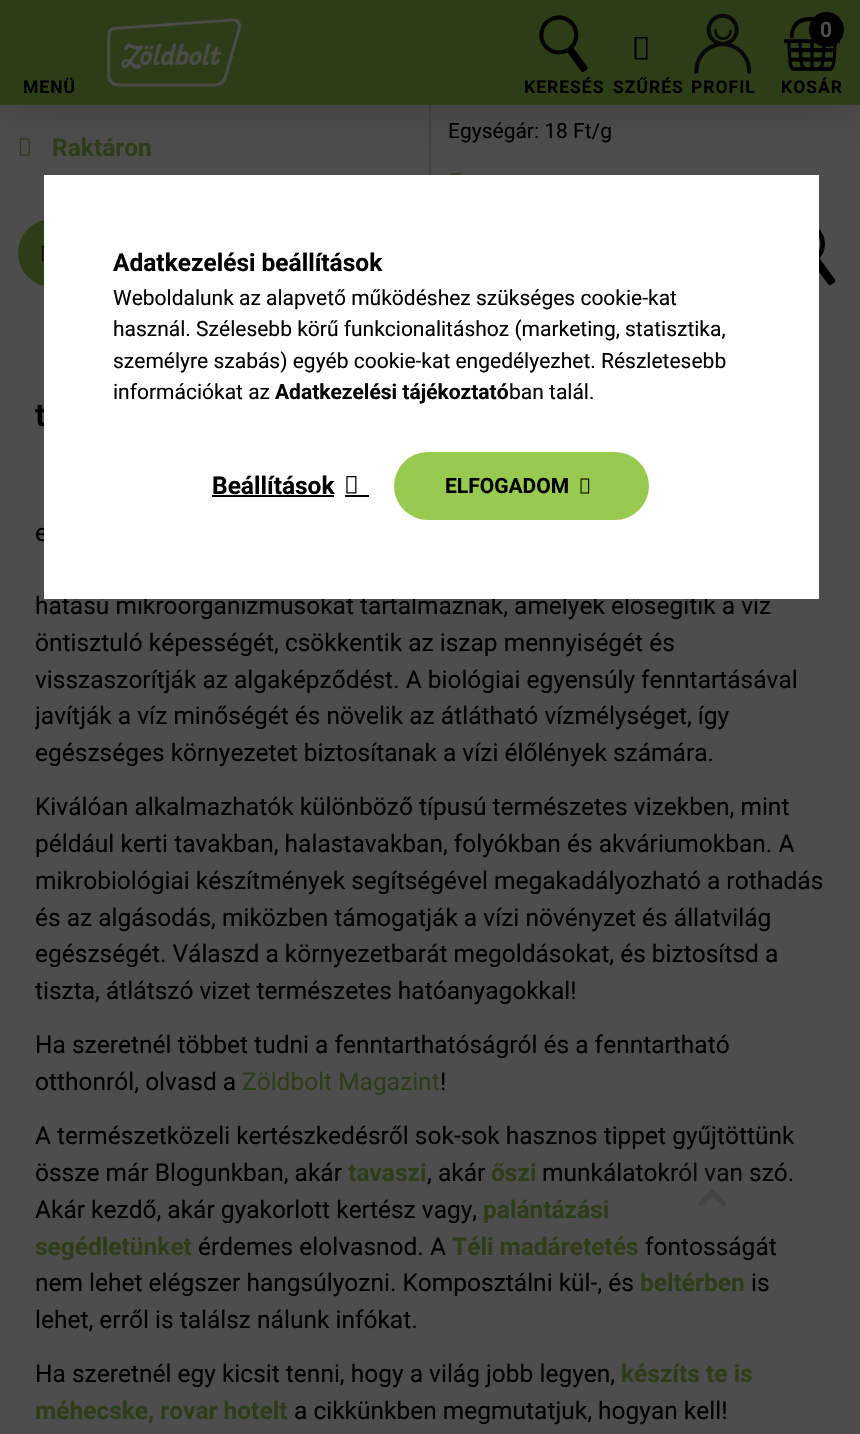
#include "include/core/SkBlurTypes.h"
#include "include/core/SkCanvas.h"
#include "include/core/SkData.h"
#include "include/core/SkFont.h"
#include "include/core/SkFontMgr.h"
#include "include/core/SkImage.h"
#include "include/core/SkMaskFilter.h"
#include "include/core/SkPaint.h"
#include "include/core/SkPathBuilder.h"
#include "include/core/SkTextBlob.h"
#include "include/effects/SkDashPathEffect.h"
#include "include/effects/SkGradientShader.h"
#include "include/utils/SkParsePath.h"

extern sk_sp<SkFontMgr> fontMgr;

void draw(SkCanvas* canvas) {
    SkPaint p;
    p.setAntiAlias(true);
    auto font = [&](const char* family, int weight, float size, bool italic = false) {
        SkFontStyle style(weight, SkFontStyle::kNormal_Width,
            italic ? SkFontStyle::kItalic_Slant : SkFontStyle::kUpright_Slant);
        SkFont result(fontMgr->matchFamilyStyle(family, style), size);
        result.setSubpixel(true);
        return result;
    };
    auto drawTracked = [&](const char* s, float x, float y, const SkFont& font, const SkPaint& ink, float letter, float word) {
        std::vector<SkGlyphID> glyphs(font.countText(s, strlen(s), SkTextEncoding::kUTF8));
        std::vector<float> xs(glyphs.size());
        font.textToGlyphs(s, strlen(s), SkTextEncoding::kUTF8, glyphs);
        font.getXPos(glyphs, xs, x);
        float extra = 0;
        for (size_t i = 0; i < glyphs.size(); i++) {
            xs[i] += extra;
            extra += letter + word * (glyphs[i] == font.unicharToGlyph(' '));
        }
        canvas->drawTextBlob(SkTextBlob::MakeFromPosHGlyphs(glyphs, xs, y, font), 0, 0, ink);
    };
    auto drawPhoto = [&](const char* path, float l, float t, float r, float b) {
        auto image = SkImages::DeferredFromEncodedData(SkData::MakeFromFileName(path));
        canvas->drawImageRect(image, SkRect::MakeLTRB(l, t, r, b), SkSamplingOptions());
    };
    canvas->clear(0xFF4D4D4D);
    drawPhoto("media/5.png", 450, 173, 461, 175);
    drawPhoto("media/7.png", 19, 138, 30, 156);
    p.setColor(0xFF414242);
    canvas->drawRect(SkRect::MakeLTRB(429, 105, 431, 175), p);
    p.setColor(0x33000000);
    p.setMaskFilter(SkMaskFilter::MakeBlur(kNormal_SkBlurStyle, 26));
    canvas->drawRect(SkRect::MakeLTRB(0, 0, 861, 105), p);
    p.setMaskFilter(nullptr);
    p.setColor(0xFF2D3D18);
    canvas->drawRect(SkRect::MakeLTRB(0, 0, 860, 105), p);
    auto font1 = font("Roboto", 700, 17.5f);
    p.setColor(0xFF000000);
    drawTracked("MENÜ", 23, 93, font1, p, 1, 0);
    drawPhoto("media/1.png", 107, 18, 242, 87);
    drawPhoto("media/2.png", 539, 15, 588, 73);
    drawTracked("KERESÉS", 524, 93, font1, p, 1, 0);
    canvas->drawPath(SkPathBuilder().moveTo(634.5f, 59.5f).lineTo(634.5f, 37).lineTo(647.5f, 37).lineTo(647.5f, 59.5f).close().moveTo(636.5f, 58).lineTo(646, 58).lineTo(646, 38.5f).lineTo(636.5f, 38.5f).close().detach(), p);
    drawTracked("SZŰRÉS", 613, 93, font1, p, 1, 0);
    drawPhoto("media/3.png", 694, 13, 752, 74);
    drawTracked("PROFIL", 691, 93, font1, p, 1, 0);
    drawPhoto("media/4.png", 784, 17, 840, 71);
    canvas->drawCircle(826.5f, 29.5f, 17.5f, p);
    auto font2 = font("Roboto", 700, 21);
    p.setColor(0xFF4D4D4D);
    canvas->drawString("0", 820, 37, font2, p);
    p.setColor(0xFF000000);
    drawTracked("KOSÁR", 781, 93, font1, p, 1, 0);
    auto font3 = font("Roboto", 400, 21);
    canvas->drawString("Egységár: 18 Ft/g", 448, 138, font3, p);
    drawPhoto("media/6.png", 819, 229, 836, 286);
    auto font4 = font("Roboto", 700, 24.5f);
    p.setColor(0xFF2D3D18);
    canvas->drawString("Raktáron", 52, 156, font4, p);
    {
        const SkColor colors[] = {0xFF2D3D18, 0xFF000000};
        const float stops[] = {0.33f, 0.67f};
        const SkPoint ends[] = {{18, 253}, {228, 253}};
        p.setShader(SkGradientShader::MakeLinear(ends, colors, stops, 2, SkTileMode::kClamp));
        p.setAlpha(255);
    }
    canvas->drawRoundRect(SkRect::MakeLTRB(18, 219, 88, 287), 34, 34, p);
    drawPhoto("media/8.png", 42, 245, 44, 261);
    auto font5 = font("Roboto", 700, 32);
    p.setShader(nullptr);
    p.setColor(0xFF000000);
    canvas->drawString("t", 35, 426, font5, p);
    auto font6 = font("Roboto", 400, 24.5f);
    {
        const struct { const char* s; float x, y; } items[] = {
            {"e", 35, 541},
            {"hatású mikroorganizmusokat tartalmaznak, amelyek elősegítik a víz", 35, 614},
            {"öntisztuló képességét, csökkentik az iszap mennyiségét és", 35, 651},
            {"visszaszorítják az algaképződést. A biológiai egyensúly fenntartásával", 35, 688},
        };
        for (auto [s, x, y] : items) {
            canvas->drawString(s, x, y, font6, p);
        }
    }
    canvas->save();
    canvas->clipRect(SkRect::MakeLTRB(35, 359, 826, 1430));
    canvas->drawString("javítják a víz minőségét és növelik az átlátható vízmélységet, így", 35, 724, font6, p);
    canvas->restore();
    {
        const struct { const char* s; float x, y; } items[] = {
            {"egészséges környezetet biztosítanak a vízi élőlények számára.", 35, 761},
            {"Kiválóan alkalmazhatók különböző típusú természetes vizekben, mint", 35, 815},
            {"például kerti tavakban, halastavakban, folyókban és akváriumokban. A", 35, 852},
            {"mikrobiológiai készítmények segítségével megakadályozható a rothadás", 35, 889},
            {"és az algásodás, miközben támogatják a vízi növényzet és állatvilág", 35, 926},
            {"egészségét. Válaszd a környezetbarát megoldásokat, és biztosítsd a", 35, 962},
            {"tiszta, átlátszó vizet természetes hatóanyagokkal!", 35, 999},
            {"Ha szeretnél többet tudni a fenntarthatóságról és a fenntartható", 35, 1053},
            {"otthonról, olvasd a", 35, 1090},
        };
        for (auto [s, x, y] : items) {
            canvas->drawString(s, x, y, font6, p);
        }
    }
    p.setColor(0xFF2D3D18);
    canvas->drawString("Zöldbolt Magazint", 242, 1090, font6, p);
    p.setColor(0xFF000000);
    {
        const struct { const char* s; float x, y; } items[] = {
            {"!", 440, 1090},
            {"A természetközeli kertészkedésről sok-sok hasznos tippet gyűjtöttünk", 35, 1144},
            {"össze már Blogunkban, akár", 35, 1181},
        };
        for (auto [s, x, y] : items) {
            canvas->drawString(s, x, y, font6, p);
        }
    }
    p.setColor(0xFF2D3D18);
    canvas->drawString("tavaszi", 348, 1181, font4, p);
    p.setColor(0xFF000000);
    canvas->drawString(", akár", 427, 1181, font6, p);
    p.setColor(0xFF2D3D18);
    canvas->drawString("őszi", 491, 1181, font4, p);
    p.setColor(0xFF000000);
    canvas->drawString("munkálatokról van szó.", 542, 1181, font6, p);
    canvas->drawString("Akár kezdő, akár gyakorlott kertész vagy,", 35, 1218, font6, p);
    p.setColor(0xFF2D3D18);
    canvas->drawString("palántázási", 483, 1218, font4, p);
    canvas->drawString("segédletünket", 35, 1255, font4, p);
    p.setColor(0xFF000000);
    canvas->drawString("érdemes elolvasnod. A", 198, 1255, font6, p);
    p.setColor(0xFF2D3D18);
    canvas->drawString("Téli madáretetés", 452, 1255, font4, p);
    p.setColor(0xFF000000);
    canvas->drawString("fontosságát", 645, 1255, font6, p);
    canvas->drawString("nem lehet elégszer hangsúlyozni. Komposztálni kül-, és", 35, 1291, font6, p);
    p.setColor(0xFF2D3D18);
    canvas->drawString("beltérben", 640, 1291, font4, p);
    p.setColor(0xFF000000);
    {
        const struct { const char* s; float x, y; } items[] = {
            {"is", 751, 1291},
            {"lehet, erről is találsz nálunk infókat.", 35, 1328},
            {"Ha szeretnél egy kicsit tenni, hogy a világ jobb legyen,", 35, 1382},
        };
        for (auto [s, x, y] : items) {
            canvas->drawString(s, x, y, font6, p);
        }
    }
    p.setColor(0xFF2D3D18);
    canvas->drawString("készíts te is", 621, 1382, font4, p);
    canvas->drawString("méhecske, rovar hotelt", 35, 1419, font4, p);
    p.setColor(0xFF000000);
    canvas->drawString("a cikkünkben megmutatjuk, hogyan kell!", 294, 1419, font6, p);
    p.setColor(0xFFFFFFFF);
    canvas->drawRect(SkRect::MakeLTRB(44, 175, 819, 599), p);
    p.setColor(0xFF000000);
    canvas->drawString("Adatkezelési beállítások", 113, 271, font4, p);
    {
        const struct { const char* s; float x, y; } items[] = {
            {"Weboldalunk az alapvető működéshez szükséges cookie-kat", 113, 305},
            {"használ. Szélesebb körű funkcionalitáshoz (marketing, statisztika,", 113, 336},
            {"személyre szabás) egyéb cookie-kat engedélyezhet. Részletesebb", 113, 368},
            {"információkat az", 113, 399},
        };
        for (auto [s, x, y] : items) {
            canvas->drawString(s, x, y, font3, p);
        }
    }
    canvas->drawString("Adatkezelési tájékoztató", 275, 399, font2, p);
    canvas->drawString("ban talál.", 509, 399, font3, p);
    canvas->drawString("Beállítások", 212, 494, font4, p);
    canvas->drawRect(SkRect::MakeLTRB(212, 495, 334, 497), p);
    drawPhoto("media/9.png", 346, 476, 357, 494);
    canvas->drawRect(SkRect::MakeLTRB(345, 495, 369, 497), p);
    {
        const SkColor colors[] = {0xFF97CA4F, 0xFF000000};
        const float stops[] = {0.33f, 0.67f};
        const SkPoint ends[] = {{393, 486}, {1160, 486}};
        p.setShader(SkGradientShader::MakeLinear(ends, colors, stops, 2, SkTileMode::kClamp));
        p.setAlpha(255);
    }
    canvas->drawRoundRect(SkRect::MakeLTRB(394, 452, 649, 520), 34, 34, p);
    p.setShader(nullptr);
    p.setColor(0xFF000000);
    canvas->drawString("ELFOGADOM", 445, 493, font2, p);
    drawPhoto("media/10.png", 580, 478, 590, 494);
    p.setColor(0x1F4D4D4D);
    canvas->drawRoundRect(SkRect::MakeLTRB(669, 1155, 756, 1243), 43.5f, 43.5f, p);
    p.setColor(0xFF444444);
    canvas->drawPath(SkPathBuilder().moveTo(723.5f, 1207.5f).lineTo(708.5f, 1192.5f).lineTo(712, 1188.5f).lineTo(727, 1203.5f).close().detach(), p);
    canvas->drawPath(SkPathBuilder().moveTo(697.5f, 1203.5f).lineTo(712, 1188.5f).lineTo(716, 1192.5f).lineTo(701, 1207.5f).close().detach(), p);
}
